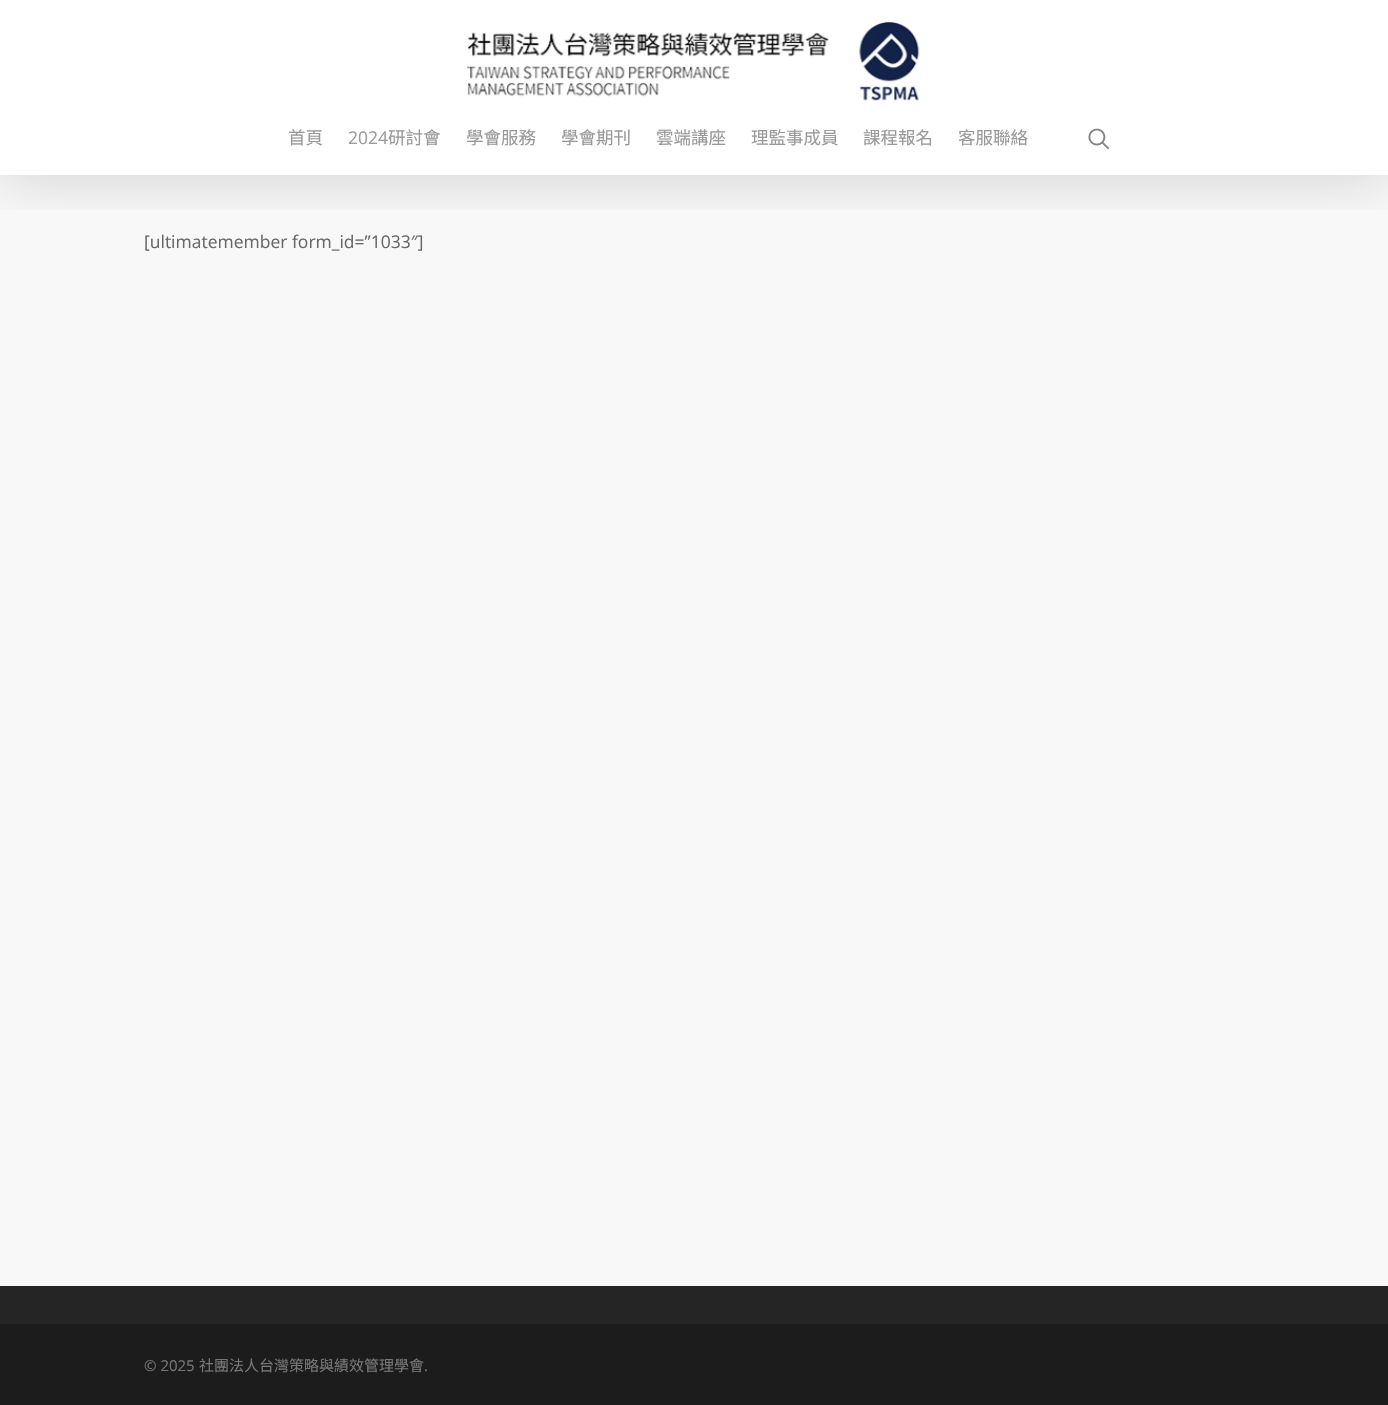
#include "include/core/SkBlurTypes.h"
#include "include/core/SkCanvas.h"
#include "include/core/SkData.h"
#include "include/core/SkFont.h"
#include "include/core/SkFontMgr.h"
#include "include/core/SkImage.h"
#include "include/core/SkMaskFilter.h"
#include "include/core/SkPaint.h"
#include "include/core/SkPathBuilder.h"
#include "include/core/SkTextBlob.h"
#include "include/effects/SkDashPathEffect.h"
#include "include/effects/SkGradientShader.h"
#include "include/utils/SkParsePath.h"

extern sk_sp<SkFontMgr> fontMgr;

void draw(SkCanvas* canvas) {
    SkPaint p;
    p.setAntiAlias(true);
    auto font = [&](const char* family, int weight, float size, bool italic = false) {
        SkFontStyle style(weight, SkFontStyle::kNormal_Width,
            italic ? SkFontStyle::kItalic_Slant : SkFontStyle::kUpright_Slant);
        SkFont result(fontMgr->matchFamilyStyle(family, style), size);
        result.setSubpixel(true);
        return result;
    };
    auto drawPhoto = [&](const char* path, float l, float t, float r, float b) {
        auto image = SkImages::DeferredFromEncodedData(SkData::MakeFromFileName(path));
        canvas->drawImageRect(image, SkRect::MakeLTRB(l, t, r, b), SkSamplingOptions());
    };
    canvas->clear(0xFFFFFFFF);
    p.setColor(0xFFF8F8F8);
    canvas->drawRect(SkRect::MakeLTRB(0, 175, 1388, 1286), p);
    canvas->save();
    canvas->clipRect(SkRect::MakeLTRB(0, 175, 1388, 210));
    p.setColor(0x26000000);
    p.setMaskFilter(SkMaskFilter::MakeBlur(kNormal_SkBlurStyle, 28));
    canvas->drawRect(SkRect::MakeLTRB(0, 4, 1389, 179), p);
    p.setMaskFilter(nullptr);
    canvas->restore();
    drawPhoto("media/1.png", 467, 21, 920, 101);
    auto font1 = font("Noto Sans CJK TC", 400, 17.5f);
    p.setColor(0xFF999999);
    canvas->drawString("首頁", 288, 144, font1, p);
    auto font2 = font("Open Sans", 400, 17.5f);
    canvas->drawString("2024", 348, 144, font2, p);
    {
        const struct { const char* s; float x, y; } items[] = {
            {"研討會", 388, 144},
            {"學會服務", 466, 144},
            {"學會期刊", 561, 144},
            {"雲端講座", 656, 144},
            {"理監事成員", 751, 144},
            {"課程報名", 863, 144},
            {"客服聯絡", 958, 144},
        };
        for (auto [s, x, y] : items) {
            canvas->drawString(s, x, y, font1, p);
        }
    }
    drawPhoto("media/2.png", 1088, 128, 1109, 150);
    p.setColor(0xFF676767);
    canvas->drawString("[ultimatemember form_id=”1033″]", 144, 248, font2, p);
    p.setColor(0xFF252525);
    canvas->drawRect(SkRect::MakeLTRB(0, 1286, 1388, 1324), p);
    p.setColor(0xFF1C1C1C);
    canvas->drawRect(SkRect::MakeLTRB(0, 1324, 1388, 1405), p);
    auto font3 = font("Open Sans", 400, 15);
    p.setColor(0xFF777777);
    canvas->drawString("© 2025", 144, 1371, font3, p);
    auto font4 = font("Noto Sans CJK TC", 400, 15);
    canvas->drawString("社團法人台灣策略與績效管理學會", 199, 1371, font4, p);
    canvas->drawString(".", 424, 1371, font3, p);
}
